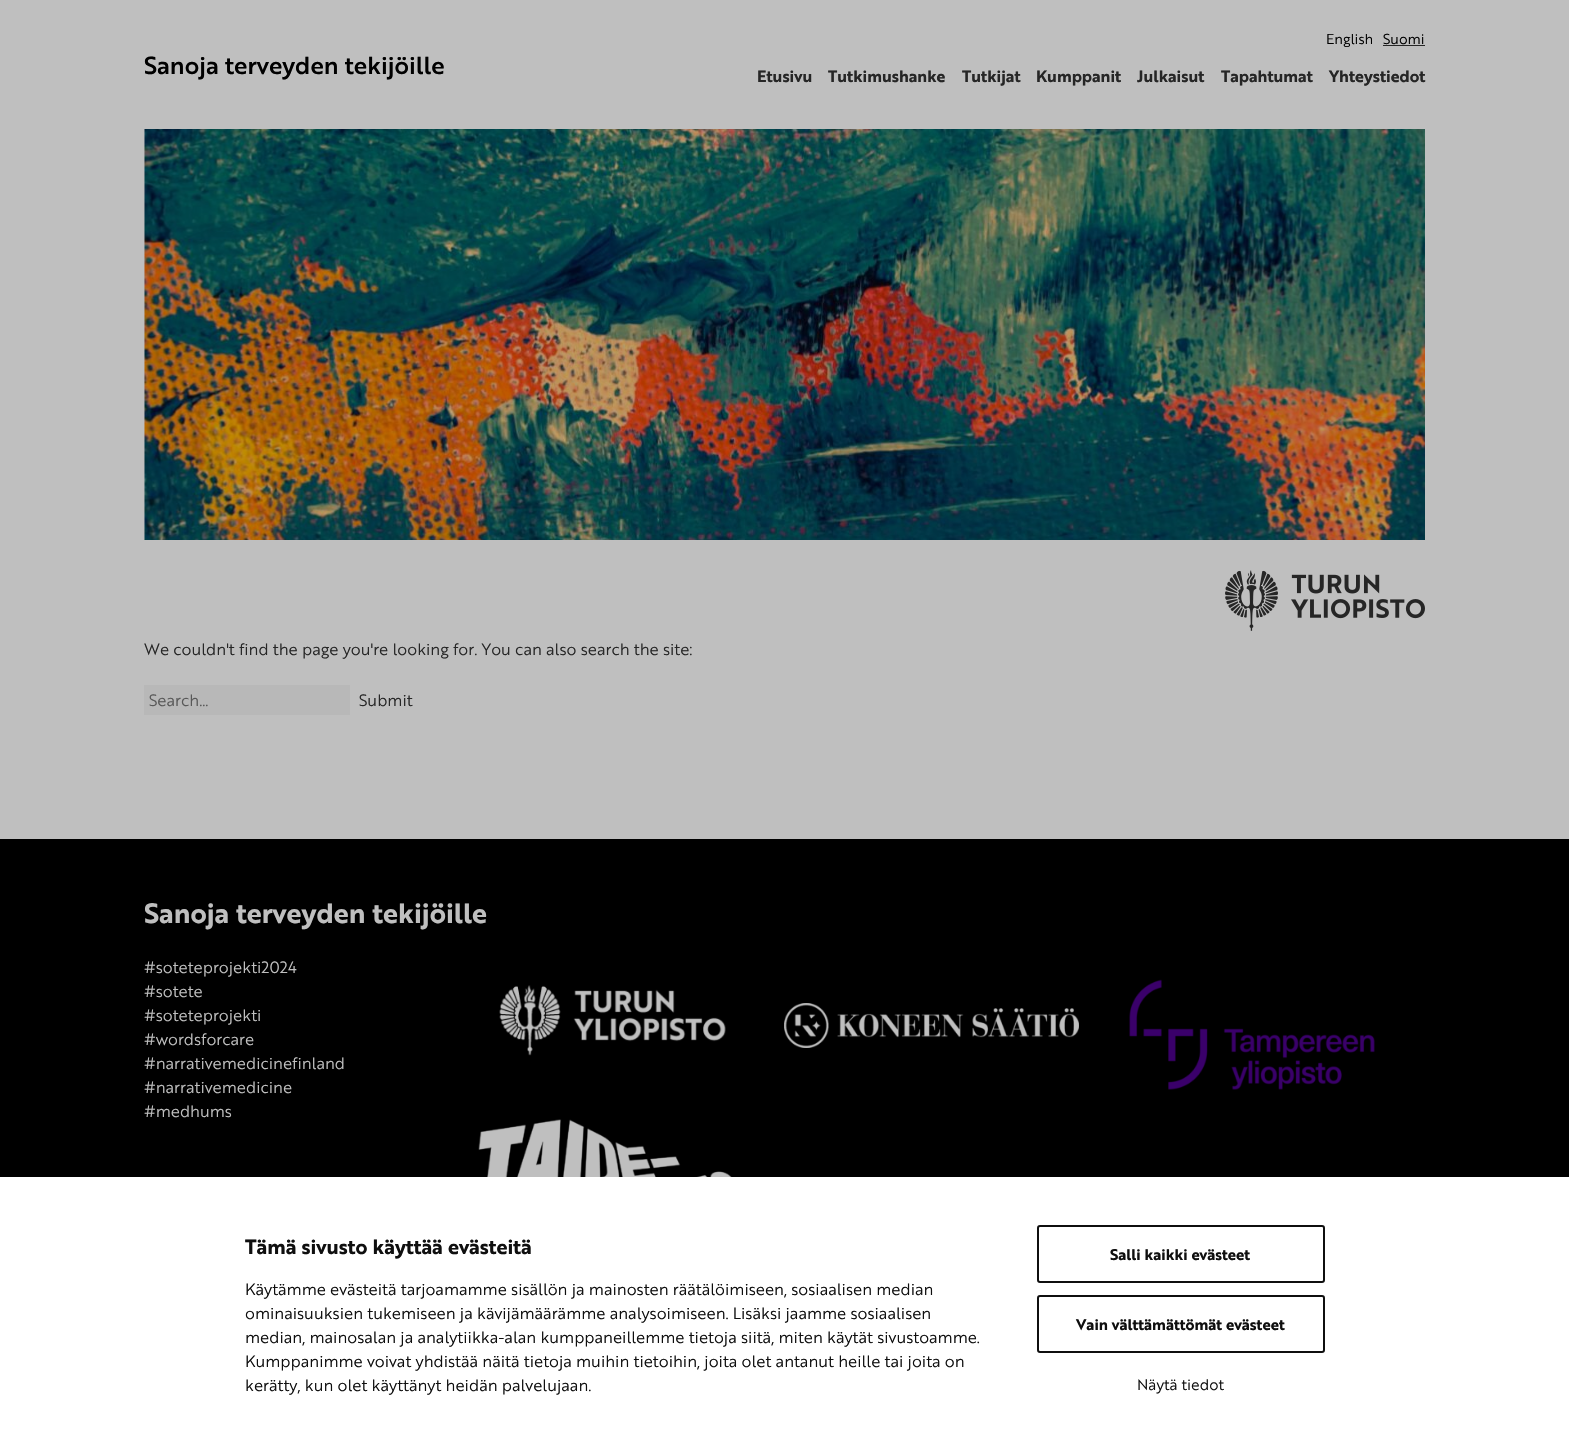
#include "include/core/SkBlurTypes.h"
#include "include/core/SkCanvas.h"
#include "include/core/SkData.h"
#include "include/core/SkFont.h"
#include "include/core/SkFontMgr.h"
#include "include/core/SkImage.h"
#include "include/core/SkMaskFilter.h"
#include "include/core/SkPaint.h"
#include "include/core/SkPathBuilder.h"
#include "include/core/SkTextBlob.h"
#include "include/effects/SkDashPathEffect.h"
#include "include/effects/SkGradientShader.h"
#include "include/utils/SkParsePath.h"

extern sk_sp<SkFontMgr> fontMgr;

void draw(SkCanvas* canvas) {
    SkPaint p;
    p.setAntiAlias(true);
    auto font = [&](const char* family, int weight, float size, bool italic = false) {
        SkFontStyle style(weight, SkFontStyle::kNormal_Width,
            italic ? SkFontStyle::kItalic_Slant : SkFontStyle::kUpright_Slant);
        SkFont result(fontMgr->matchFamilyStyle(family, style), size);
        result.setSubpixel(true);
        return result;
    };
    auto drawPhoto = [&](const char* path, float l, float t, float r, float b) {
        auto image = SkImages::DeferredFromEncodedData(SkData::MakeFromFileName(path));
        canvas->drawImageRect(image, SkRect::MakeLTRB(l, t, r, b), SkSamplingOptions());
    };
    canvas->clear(0xFFBFBFBF);
    auto font1 = font("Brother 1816", 500, 24);
    p.setColor(0xFF000000);
    canvas->drawString("Sanoja terveyden tekijöille", 144, 74, font1, p);
    auto font2 = font("Brother 1816", 400, 14);
    canvas->drawString("English", 1326, 44, font2, p);
    canvas->drawString("Suomi", 1383, 44, font2, p);
    p.setColor(0xFF262626);
    canvas->drawRect(SkRect::MakeLTRB(1383, 45, 1425, 46), p);
    auto font3 = font("Brother 1816", 700, 16);
    {
        const struct { const char* s; float x, y; } items[] = {
            {"Etusivu", 757, 82},
            {"Tutkimushanke", 828, 82},
            {"Tutkijat", 962, 82},
            {"Kumppanit", 1036, 82},
            {"Julkaisut", 1137, 82},
            {"Tapahtumat", 1221, 82},
            {"Yhteystiedot", 1329, 82},
        };
        for (auto [s, x, y] : items) {
            canvas->drawString(s, x, y, font3, p);
        }
    }
    p.setColor(0xFFB8B8B8);
    canvas->drawRect(SkRect::MakeLTRB(144, 129, 145, 540), p);
    drawPhoto("media/1.png", 144, 129, 1425, 540);
    drawPhoto("media/2.png", 1225, 570, 1425, 631);
    auto font4 = font("Brother 1816", 400, 16);
    p.setColor(0xFF262626);
    canvas->drawString("We couldn't find the page you're looking for. You can also search the site:", 144, 655, font4, p);
    p.setColor(0xFFB8B8B8);
    canvas->drawRect(SkRect::MakeLTRB(144, 685, 350, 715), p);
    p.setColor(0xFF585858);
    canvas->drawString("Search...", 149, 706, font4, p);
    p.setColor(0xFF262626);
    canvas->drawString("Submit", 359, 706, font4, p);
    p.setColor(0xFF000000);
    canvas->drawRect(SkRect::MakeLTRB(0, 839, 1569, 1177), p);
    auto font5 = font("Brother 1816", 700, 27.25f);
    p.setColor(0xFFBFBFBF);
    canvas->drawString("Sanoja terveyden tekijöille", 144, 923, font5, p);
    {
        const struct { const char* s; float x, y; } items[] = {
            {"#soteteprojekti2024", 144, 973},
            {"#sotete", 144, 997},
            {"#soteteprojekti", 144, 1021},
            {"#wordsforcare", 144, 1045},
            {"#narrativemedicinefinland", 144, 1069},
            {"#narrativemedicine", 144, 1093},
            {"#medhums", 144, 1117},
        };
        for (auto [s, x, y] : items) {
            canvas->drawString(s, x, y, font4, p);
        }
    }
    drawPhoto("media/3.png", 499, 985, 726, 1056);
    drawPhoto("media/4.png", 478, 1119, 732, 1177);
    drawPhoto("media/5.png", 784, 1003, 1079, 1048);
    drawPhoto("media/6.png", 1129, 979, 1375, 1090);
    p.setColor(0xFFFFFFFF);
    canvas->drawRect(SkRect::MakeLTRB(0, 1177, 1569, 1451), p);
    auto font6 = font("Brother 1816", 700, 20);
    p.setColor(0xFF0F0F0F);
    canvas->drawString("Tämä sivusto käyttää evästeitä", 245, 1254, font6, p);
    {
        const struct { const char* s; float x, y; } items[] = {
            {"Käytämme evästeitä tarjoamamme sisällön ja mainosten räätälöimiseen, sosiaalisen median", 245, 1295},
            {"ominaisuuksien tukemiseen ja kävijämäärämme analysoimiseen. Lisäksi jaamme sosiaalisen", 245, 1319},
            {"median, mainosalan ja analytiikka-alan kumppaneillemme tietoja siitä, miten käytät sivustoamme.", 245, 1343},
            {"Kumppanimme voivat yhdistää näitä tietoja muihin tietoihin, joita olet antanut heille tai joita on", 245, 1367},
            {"kerätty, kun olet käyttänyt heidän palvelujaan.", 245, 1391},
        };
        for (auto [s, x, y] : items) {
            canvas->drawString(s, x, y, font4, p);
        }
    }
    p.setStyle(SkPaint::kStroke_Style);
    p.setStrokeWidth(2);
    canvas->drawRoundRect(SkRect::MakeLTRB(1038, 1226, 1324, 1282), 2, 2, p);
    auto font7 = font("Brother 1816", 700, 15);
    p.setStyle(SkPaint::kFill_Style);
    canvas->drawString("Salli kaikki evästeet", 1110, 1260, font7, p);
    p.setStyle(SkPaint::kStroke_Style);
    canvas->drawRoundRect(SkRect::MakeLTRB(1038, 1296, 1324, 1352), 2, 2, p);
    p.setStyle(SkPaint::kFill_Style);
    canvas->drawString("Vain välttämättömät evästeet", 1076, 1330, font7, p);
    auto font8 = font("Brother 1816", 400, 15);
    canvas->drawString("Näytä tiedot", 1137, 1390, font8, p);
}
